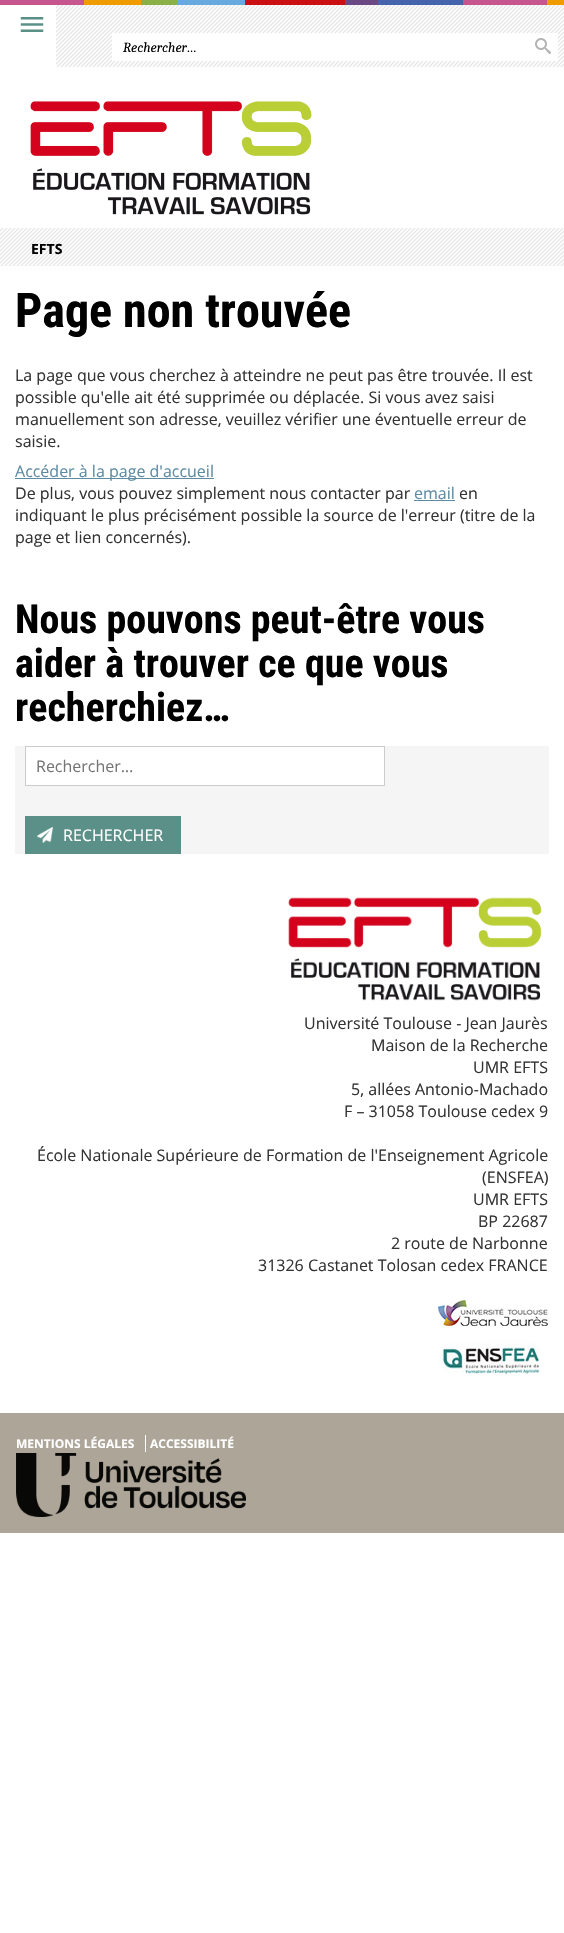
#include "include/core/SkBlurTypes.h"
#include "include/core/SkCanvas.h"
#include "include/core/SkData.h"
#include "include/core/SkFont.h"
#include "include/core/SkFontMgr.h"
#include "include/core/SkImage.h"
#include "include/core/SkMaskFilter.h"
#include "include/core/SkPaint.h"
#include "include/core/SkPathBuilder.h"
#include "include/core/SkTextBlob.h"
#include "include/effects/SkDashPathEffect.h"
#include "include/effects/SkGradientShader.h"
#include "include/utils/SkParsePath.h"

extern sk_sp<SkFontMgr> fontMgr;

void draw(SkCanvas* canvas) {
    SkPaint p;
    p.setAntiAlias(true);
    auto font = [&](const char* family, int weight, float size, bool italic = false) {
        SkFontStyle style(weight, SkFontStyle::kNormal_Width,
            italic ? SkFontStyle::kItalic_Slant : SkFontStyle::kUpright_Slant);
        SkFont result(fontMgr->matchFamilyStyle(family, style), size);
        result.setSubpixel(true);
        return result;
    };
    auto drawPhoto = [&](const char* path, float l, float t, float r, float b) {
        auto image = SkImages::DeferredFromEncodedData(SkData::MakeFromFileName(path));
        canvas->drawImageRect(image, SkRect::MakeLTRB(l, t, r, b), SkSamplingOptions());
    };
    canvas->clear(0xFFFFFFFF);
    drawPhoto("media/1.png", 0, 0, 564, 5);
    drawPhoto("media/2.png", 20, 17, 44, 32);
    p.setColor(0xFFE5E5E5);
    canvas->drawRect(SkRect::MakeLTRB(56, 5, 564, 67), p);
    drawPhoto("media/3.png", 56, 5, 564, 67);
    p.setColor(0xFFFFFFFF);
    canvas->drawRect(SkRect::MakeLTRB(112, 33, 558, 61), p);
    auto font1 = font("Caladea", 400, 14, true);
    p.setColor(0xFF000000);
    canvas->drawString("Rechercher…", 123, 52, font1, p);
    drawPhoto("media/4.png", 535, 38, 551, 54);
    drawPhoto("media/5.png", 30, 101, 312, 215);
    p.setColor(0xFFE5E5E5);
    canvas->drawRect(SkRect::MakeLTRB(0, 228, 564, 266), p);
    drawPhoto("media/6.png", 0, 228, 564, 266);
    auto font2 = font("Open Sans", 700, 14);
    p.setColor(0xFF000000);
    canvas->drawString("EFTS", 31, 254, font2, p);
    auto font3 = font("Roboto Condensed", 700, 48);
    canvas->drawString("Page non trouvée", 15, 327, font3, p);
    auto font4 = font("Open Sans", 400, 16);
    p.setColor(0xFF333333);
    {
        const struct { const char* s; float x, y; } items[] = {
            {"La page que vous cherchez à atteindre ne peut pas être trouvée. Il est", 15, 381},
            {"possible qu'elle ait été supprimée ou déplacée. Si vous avez saisi", 15, 403},
            {"manuellement son adresse, veuillez vérifier une éventuelle erreur de", 15, 425},
            {"saisie.", 15, 447},
        };
        for (auto [s, x, y] : items) {
            canvas->drawString(s, x, y, font4, p);
        }
    }
    p.setColor(0xFF5D8BA2);
    canvas->drawRect(SkRect::MakeLTRB(15, 478, 214, 479), p);
    canvas->drawString("Accéder à la page d'accueil", 15, 477, font4, p);
    p.setColor(0xFF333333);
    canvas->drawString("De plus, vous pouvez simplement nous contacter par", 15, 499, font4, p);
    p.setColor(0xFF5D8BA2);
    canvas->drawString("email", 414, 499, font4, p);
    canvas->drawRect(SkRect::MakeLTRB(414, 500, 455, 501), p);
    p.setColor(0xFF333333);
    {
        const struct { const char* s; float x, y; } items[] = {
            {"en", 459, 499},
            {"indiquant le plus précisément possible la source de l'erreur (titre de la", 15, 521},
            {"page et lien concernés).", 15, 543},
        };
        for (auto [s, x, y] : items) {
            canvas->drawString(s, x, y, font4, p);
        }
    }
    auto font5 = font("Roboto Condensed", 700, 40);
    p.setColor(0xFF000000);
    {
        const struct { const char* s; float x, y; } items[] = {
            {"Nous pouvons peut-être vous", 15, 633},
            {"aider à trouver ce que vous", 15, 677},
            {"recherchiez…", 15, 721},
        };
        for (auto [s, x, y] : items) {
            canvas->drawString(s, x, y, font5, p);
        }
    }
    p.setColor(0xFFF5F5F5);
    canvas->drawRect(SkRect::MakeLTRB(15, 746, 549, 854), p);
    p.setColor(0xFFFFFFFF);
    canvas->drawRect(SkRect::MakeLTRB(25.5f, 746.5f, 384.5f, 785.5f), p);
    p.setStyle(SkPaint::kStroke_Style);
    p.setStrokeWidth(1);
    p.setColor(0xFFCCCCCC);
    canvas->drawRect(SkRect::MakeLTRB(25.5f, 746.5f, 384.5f, 785.5f), p);
    p.setStyle(SkPaint::kFill_Style);
    p.setColor(0xFF757575);
    canvas->drawString("Rechercher…", 36, 772, font4, p);
    p.setColor(0xFF5A9087);
    canvas->drawRect(SkRect::MakeLTRB(25, 816, 181, 854), p);
    drawPhoto("media/7.png", 37, 827, 53, 843);
    p.setColor(0xFFFFFFFF);
    canvas->drawString("RECHERCHER", 63, 841, font4, p);
    drawPhoto("media/8.png", 288, 897, 542, 1001);
    p.setColor(0xFF333333);
    {
        const struct { const char* s; float x, y; } items[] = {
            {"Université Toulouse - Jean Jaurès", 304, 1029},
            {"Maison de la Recherche", 371, 1051},
            {"UMR EFTS", 473, 1073},
            {"5, allées Antonio-Machado", 351, 1095},
            {"F – 31058 Toulouse cedex 9", 344, 1117},
            {"École Nationale Supérieure de Formation de l'Enseignement Agricole", 37, 1161},
            {"(ENSFEA)", 482, 1183},
            {"UMR EFTS", 473, 1205},
            {"BP 22687", 478, 1227},
            {"2 route de Narbonne", 391, 1249},
            {"31326 Castanet Tolosan cedex FRANCE", 258, 1271},
        };
        for (auto [s, x, y] : items) {
            canvas->drawString(s, x, y, font4, p);
        }
    }
    drawPhoto("media/9.png", 438, 1300, 548, 1377);
    p.setColor(0xFFADA598);
    canvas->drawRect(SkRect::MakeLTRB(0, 1413, 564, 1533), p);
    p.setColor(0xFFFFFFFF);
    canvas->drawRect(SkRect::MakeLTRB(145, 1435, 146, 1452), p);
    auto font6 = font("Open Sans", 700, 12);
    canvas->drawString("MENTIONS LÉGALES", 16, 1448, font6, p);
    canvas->drawString("ACCESSIBILITÉ", 150, 1448, font6, p);
    drawPhoto("media/10.png", 16, 1453, 246, 1517);
}
